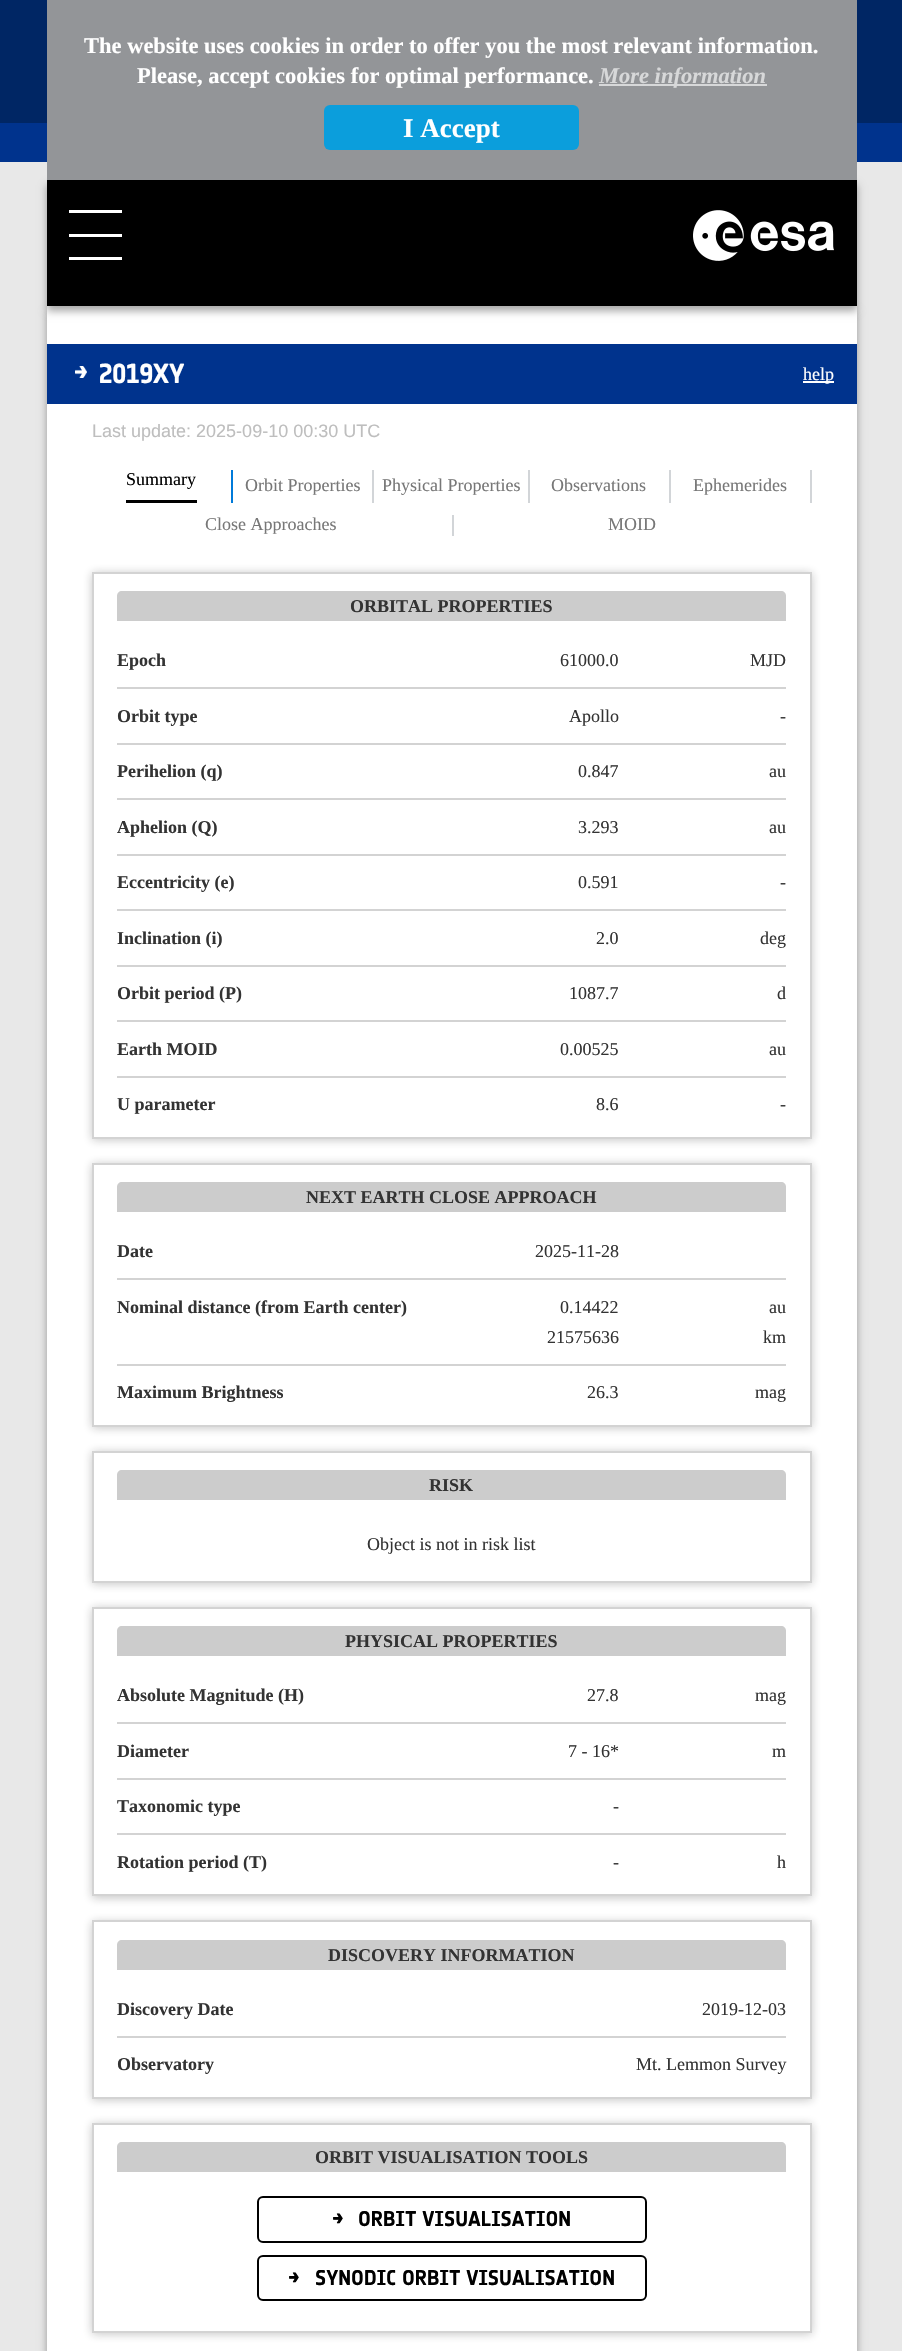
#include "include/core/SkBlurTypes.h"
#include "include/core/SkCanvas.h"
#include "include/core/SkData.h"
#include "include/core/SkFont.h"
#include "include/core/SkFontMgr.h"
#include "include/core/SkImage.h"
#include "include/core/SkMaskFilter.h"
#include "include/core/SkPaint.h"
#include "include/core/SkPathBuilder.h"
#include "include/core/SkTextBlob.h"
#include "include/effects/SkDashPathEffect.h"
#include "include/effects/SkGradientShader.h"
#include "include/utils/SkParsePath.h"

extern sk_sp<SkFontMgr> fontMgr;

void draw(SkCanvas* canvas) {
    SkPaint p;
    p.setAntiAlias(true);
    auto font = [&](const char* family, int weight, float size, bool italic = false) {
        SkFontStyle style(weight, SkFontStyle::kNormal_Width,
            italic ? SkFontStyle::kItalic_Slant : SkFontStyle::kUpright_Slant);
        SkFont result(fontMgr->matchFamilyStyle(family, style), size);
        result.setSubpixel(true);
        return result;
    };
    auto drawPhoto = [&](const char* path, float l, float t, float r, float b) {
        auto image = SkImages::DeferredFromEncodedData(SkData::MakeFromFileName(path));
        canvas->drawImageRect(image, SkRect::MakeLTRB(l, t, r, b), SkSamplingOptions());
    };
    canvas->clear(0xFFE8E8E8);
    p.setColor(0xFF002664);
    canvas->drawRect(SkRect::MakeLTRB(0, 0, 902, 123), p);
    p.setColor(0xFF00338D);
    canvas->drawRect(SkRect::MakeLTRB(0, 123, 902, 162), p);
    p.setColor(0x59000000);
    p.setMaskFilter(SkMaskFilter::MakeBlur(kNormal_SkBlurStyle, 4));
    canvas->drawRect(SkRect::MakeLTRB(47, 311, 857, 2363), p);
    p.setMaskFilter(nullptr);
    p.setColor(0xFFFFFFFF);
    canvas->drawRect(SkRect::MakeLTRB(47, 306, 857, 2351), p);
    p.setColor(0x59000000);
    p.setMaskFilter(SkMaskFilter::MakeBlur(kNormal_SkBlurStyle, 4));
    canvas->drawRect(SkRect::MakeLTRB(47, 185, 857, 311), p);
    p.setMaskFilter(nullptr);
    p.setColor(0xFF939598);
    canvas->drawRect(SkRect::MakeLTRB(47, 0, 857, 180), p);
    auto font1 = font("Liberation Serif", 700, 22.5f);
    p.setColor(0xFFFFFFFF);
    canvas->drawString("The website uses cookies in order to offer you the most relevant information.", 84, 53, font1, p);
    canvas->drawString("Please, accept cookies for optimal performance.", 137, 83, font1, p);
    p.setColor(0xFFD7D8D9);
    canvas->drawRect(SkRect::MakeLTRB(599, 84, 767, 86), p);
    auto font2 = font("Liberation Serif", 700, 22.5f, true);
    canvas->drawString("More information", 599, 83, font2, p);
    p.setColor(0xFF0B9EDC);
    canvas->drawRoundRect(SkRect::MakeLTRB(324, 105, 579, 150), 6, 6, p);
    auto font3 = font("Liberation Serif", 700, 27);
    p.setColor(0xFFFFFFFF);
    canvas->drawString("I Accept", 403, 137, font3, p);
    {
        const struct { float l, t, r, b; SkColor color; } items[] = {
            {47, 180, 857, 306, 0xFF000000},
            {69, 210, 122, 213, 0xFFFFFFFF},
            {69, 234, 122, 237, 0xFFFFFFFF},
            {69, 257, 122, 260, 0xFFFFFFFF},
        };
        for (auto [l, t, r, b, color] : items) {
            p.setColor(color);
            canvas->drawRect(SkRect::MakeLTRB(l, t, r, b), p);
        }
    }
    drawPhoto("media/1.png", 693, 210, 834, 261);
    p.setColor(0xFF00338D);
    canvas->drawRect(SkRect::MakeLTRB(47, 344, 857, 404), p);
    drawPhoto("media/2.png", 75, 366, 87, 378);
    auto font4 = font("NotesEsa", 700, 27);
    p.setColor(0xFFFFFFFF);
    canvas->drawString("2019XY", 99, 383, font4, p);
    canvas->drawRect(SkRect::MakeLTRB(803, 381, 834, 383), p);
    auto font5 = font("Liberation Serif", 400, 18);
    canvas->drawString("help", 803, 380, font5, p);
    auto font6 = font("Liberation Sans", 400, 18);
    p.setColor(0xFFBEBEBE);
    canvas->drawString("Last update: 2025-09-10 00:30 UTC", 92, 437, font6, p);
    p.setColor(0xFF007AD9);
    canvas->drawRect(SkRect::MakeLTRB(231, 470, 233, 503), p);
    p.setColor(0xFF000000);
    canvas->drawRect(SkRect::MakeLTRB(126, 500, 197, 503), p);
    canvas->drawString("Summary", 126, 485, font5, p);
    p.setColor(0xFFD2D5D8);
    canvas->drawRect(SkRect::MakeLTRB(372, 470, 374, 503), p);
    p.setColor(0xFF777777);
    canvas->drawString("Orbit Properties", 245, 491, font5, p);
    p.setColor(0xFFD2D5D8);
    canvas->drawRect(SkRect::MakeLTRB(528, 470, 530, 503), p);
    p.setColor(0xFF777777);
    canvas->drawString("Physical Properties", 382, 491, font5, p);
    p.setColor(0xFFD2D5D8);
    canvas->drawRect(SkRect::MakeLTRB(669, 470, 671, 503), p);
    p.setColor(0xFF777777);
    canvas->drawString("Observations", 551, 491, font5, p);
    p.setColor(0xFFD2D5D8);
    canvas->drawRect(SkRect::MakeLTRB(810, 470, 812, 503), p);
    p.setColor(0xFF777777);
    canvas->drawString("Ephemerides", 693, 491, font5, p);
    p.setColor(0xFFD2D5D8);
    canvas->drawRect(SkRect::MakeLTRB(452, 515, 454, 536), p);
    p.setColor(0xFF777777);
    canvas->drawString("Close Approaches", 205, 530, font5, p);
    canvas->drawString("MOID", 608, 530, font5, p);
    p.setColor(0x40161616);
    p.setMaskFilter(SkMaskFilter::MakeBlur(kNormal_SkBlurStyle, 4.5f));
    canvas->drawRect(SkRect::MakeLTRB(92, 573, 812, 1140), p);
    p.setMaskFilter(nullptr);
    p.setColor(0xFFFFFFFF);
    canvas->drawRect(SkRect::MakeLTRB(93, 573, 811, 1138), p);
    p.setStyle(SkPaint::kStroke_Style);
    p.setStrokeWidth(2);
    p.setColor(0xFFD3D3D3);
    canvas->drawRect(SkRect::MakeLTRB(93, 573, 811, 1138), p);
    p.setStyle(SkPaint::kFill_Style);
    p.setColor(0xFFCCCCCC);
    canvas->drawPath(SkPathBuilder().moveTo(122, 591).lineTo(781, 591).cubicTo(784, 591, 786, 593, 786, 596).lineTo(786, 621).lineTo(117, 621).lineTo(117, 596).cubicTo(117, 593, 119, 591, 122, 591).close().detach(), p);
    auto font7 = font("Liberation Serif", 700, 18);
    p.setColor(0xFF333333);
    canvas->drawString("ORBITAL PROPERTIES", 350, 612, font7, p);
    p.setColor(0xFFD3D3D3);
    canvas->drawRect(SkRect::MakeLTRB(117, 687, 786, 689), p);
    p.setColor(0xFF333333);
    canvas->drawString("Epoch", 117, 666, font7, p);
    canvas->drawString("61000.0", 560, 666, font5, p);
    canvas->drawString("MJD", 750, 666, font5, p);
    p.setColor(0xFFD3D3D3);
    canvas->drawRect(SkRect::MakeLTRB(117, 743, 786, 745), p);
    p.setColor(0xFF333333);
    canvas->drawString("Orbit type", 117, 722, font7, p);
    canvas->drawString("Apollo", 569, 722, font5, p);
    canvas->drawString("-", 780, 722, font5, p);
    p.setColor(0xFFD3D3D3);
    canvas->drawRect(SkRect::MakeLTRB(117, 798, 786, 800), p);
    p.setColor(0xFF333333);
    canvas->drawString("Perihelion (q)", 117, 777, font7, p);
    canvas->drawString("0.847", 578, 777, font5, p);
    canvas->drawString("au", 769, 777, font5, p);
    p.setColor(0xFFD3D3D3);
    canvas->drawRect(SkRect::MakeLTRB(117, 854, 786, 856), p);
    p.setColor(0xFF333333);
    canvas->drawString("Aphelion (Q)", 117, 833, font7, p);
    canvas->drawString("3.293", 578, 833, font5, p);
    canvas->drawString("au", 769, 833, font5, p);
    p.setColor(0xFFD3D3D3);
    canvas->drawRect(SkRect::MakeLTRB(117, 909, 786, 911), p);
    p.setColor(0xFF333333);
    canvas->drawString("Eccentricity (e)", 117, 888, font7, p);
    canvas->drawString("0.591", 578, 888, font5, p);
    canvas->drawString("-", 780, 888, font5, p);
    p.setColor(0xFFD3D3D3);
    canvas->drawRect(SkRect::MakeLTRB(117, 965, 786, 967), p);
    p.setColor(0xFF333333);
    canvas->drawString("Inclination (i)", 117, 944, font7, p);
    canvas->drawString("2.0", 596, 944, font5, p);
    canvas->drawString("deg", 760, 944, font5, p);
    p.setColor(0xFFD3D3D3);
    canvas->drawRect(SkRect::MakeLTRB(117, 1020, 786, 1022), p);
    p.setColor(0xFF333333);
    canvas->drawString("Orbit period (P)", 117, 999, font7, p);
    canvas->drawString("1087.7", 569, 999, font5, p);
    canvas->drawString("d", 777, 999, font5, p);
    p.setColor(0xFFD3D3D3);
    canvas->drawRect(SkRect::MakeLTRB(117, 1076, 786, 1078), p);
    p.setColor(0xFF333333);
    canvas->drawString("Earth MOID", 117, 1055, font7, p);
    canvas->drawString("0.00525", 560, 1055, font5, p);
    canvas->drawString("au", 769, 1055, font5, p);
    canvas->drawString("U parameter", 117, 1110, font7, p);
    canvas->drawString("8.6", 596, 1110, font5, p);
    canvas->drawString("-", 780, 1110, font5, p);
    p.setColor(0x40161616);
    p.setMaskFilter(SkMaskFilter::MakeBlur(kNormal_SkBlurStyle, 4.5f));
    canvas->drawRect(SkRect::MakeLTRB(92, 1164, 812, 1428), p);
    p.setMaskFilter(nullptr);
    p.setColor(0xFFFFFFFF);
    canvas->drawRect(SkRect::MakeLTRB(93, 1164, 811, 1426), p);
    p.setStyle(SkPaint::kStroke_Style);
    p.setColor(0xFFD3D3D3);
    canvas->drawRect(SkRect::MakeLTRB(93, 1164, 811, 1426), p);
    p.setStyle(SkPaint::kFill_Style);
    p.setColor(0xFFCCCCCC);
    canvas->drawPath(SkPathBuilder().moveTo(122, 1182).lineTo(781, 1182).cubicTo(784, 1182, 786, 1184, 786, 1187).lineTo(786, 1212).lineTo(117, 1212).lineTo(117, 1187).cubicTo(117, 1184, 119, 1182, 122, 1182).close().detach(), p);
    p.setColor(0xFF333333);
    canvas->drawString("NEXT EARTH CLOSE APPROACH", 306, 1203, font7, p);
    p.setColor(0xFFD3D3D3);
    canvas->drawRect(SkRect::MakeLTRB(117, 1278, 786, 1280), p);
    p.setColor(0xFF333333);
    canvas->drawString("Date", 117, 1257, font7, p);
    canvas->drawString("2025-11-28", 535, 1257, font5, p);
    p.setColor(0xFFD3D3D3);
    canvas->drawRect(SkRect::MakeLTRB(117, 1364, 786, 1366), p);
    p.setColor(0xFF333333);
    canvas->drawString("Nominal distance (from Earth center)", 117, 1313, font7, p);
    {
        const struct { const char* s; float x, y; } items[] = {
            {"0.14422", 560, 1313},
            {"au", 769, 1313},
            {"21575636", 547, 1343},
            {"km", 763, 1343},
        };
        for (auto [s, x, y] : items) {
            canvas->drawString(s, x, y, font5, p);
        }
    }
    canvas->drawString("Maximum Brightness", 117, 1398, font7, p);
    canvas->drawString("26.3", 587, 1398, font5, p);
    canvas->drawString("mag", 755, 1398, font5, p);
    p.setColor(0x40161616);
    p.setMaskFilter(SkMaskFilter::MakeBlur(kNormal_SkBlurStyle, 4.5f));
    canvas->drawRect(SkRect::MakeLTRB(92, 1452, 812, 1584), p);
    p.setMaskFilter(nullptr);
    p.setColor(0xFFFFFFFF);
    canvas->drawRect(SkRect::MakeLTRB(93, 1452, 811, 1582), p);
    p.setStyle(SkPaint::kStroke_Style);
    p.setColor(0xFFD3D3D3);
    canvas->drawRect(SkRect::MakeLTRB(93, 1452, 811, 1582), p);
    p.setStyle(SkPaint::kFill_Style);
    p.setColor(0xFFCCCCCC);
    canvas->drawPath(SkPathBuilder().moveTo(122, 1470).lineTo(781, 1470).cubicTo(784, 1470, 786, 1472, 786, 1475).lineTo(786, 1500).lineTo(117, 1500).lineTo(117, 1475).cubicTo(117, 1472, 119, 1470, 122, 1470).close().detach(), p);
    p.setColor(0xFF333333);
    canvas->drawString("RISK", 429, 1491, font7, p);
    canvas->drawString("Object is not in risk list", 367, 1550, font5, p);
    p.setColor(0x40161616);
    p.setMaskFilter(SkMaskFilter::MakeBlur(kNormal_SkBlurStyle, 4.5f));
    canvas->drawRect(SkRect::MakeLTRB(92, 1608, 812, 1898), p);
    p.setMaskFilter(nullptr);
    p.setColor(0xFFFFFFFF);
    canvas->drawRect(SkRect::MakeLTRB(93, 1608, 811, 1895), p);
    p.setStyle(SkPaint::kStroke_Style);
    p.setColor(0xFFD3D3D3);
    canvas->drawRect(SkRect::MakeLTRB(93, 1608, 811, 1895), p);
    p.setStyle(SkPaint::kFill_Style);
    p.setColor(0xFFCCCCCC);
    canvas->drawPath(SkPathBuilder().moveTo(122, 1626).lineTo(781, 1626).cubicTo(784, 1626, 786, 1628, 786, 1631).lineTo(786, 1656).lineTo(117, 1656).lineTo(117, 1631).cubicTo(117, 1628, 119, 1626, 122, 1626).close().detach(), p);
    p.setColor(0xFF333333);
    canvas->drawString("PHYSICAL PROPERTIES", 345, 1647, font7, p);
    p.setColor(0xFFD3D3D3);
    canvas->drawRect(SkRect::MakeLTRB(117, 1722, 786, 1724), p);
    p.setColor(0xFF333333);
    canvas->drawString("Absolute Magnitude (H)", 117, 1701, font7, p);
    canvas->drawString("27.8", 587, 1701, font5, p);
    canvas->drawString("mag", 755, 1701, font5, p);
    p.setColor(0xFFD3D3D3);
    canvas->drawRect(SkRect::MakeLTRB(117, 1778, 786, 1780), p);
    p.setColor(0xFF333333);
    canvas->drawString("Diameter", 117, 1757, font7, p);
    canvas->drawString("7 - 16*", 568, 1757, font5, p);
    canvas->drawString("m", 772, 1757, font5, p);
    p.setColor(0xFFD3D3D3);
    canvas->drawRect(SkRect::MakeLTRB(117, 1833, 786, 1835), p);
    p.setColor(0xFF333333);
    canvas->drawString("Taxonomic type", 117, 1812, font7, p);
    canvas->drawString("-", 613, 1812, font5, p);
    canvas->drawString("Rotation period (T)", 117, 1868, font7, p);
    canvas->drawString("-", 613, 1868, font5, p);
    canvas->drawString("h", 777, 1868, font5, p);
    p.setColor(0x40161616);
    p.setMaskFilter(SkMaskFilter::MakeBlur(kNormal_SkBlurStyle, 4.5f));
    canvas->drawRect(SkRect::MakeLTRB(92, 1922, 812, 2100), p);
    p.setMaskFilter(nullptr);
    p.setColor(0xFFFFFFFF);
    canvas->drawRect(SkRect::MakeLTRB(93, 1921, 811, 2098), p);
    p.setStyle(SkPaint::kStroke_Style);
    p.setColor(0xFFD3D3D3);
    canvas->drawRect(SkRect::MakeLTRB(93, 1921, 811, 2098), p);
    p.setStyle(SkPaint::kFill_Style);
    p.setColor(0xFFCCCCCC);
    canvas->drawPath(SkPathBuilder().moveTo(122, 1940).lineTo(781, 1940).cubicTo(784, 1940, 786, 1942, 786, 1945).lineTo(786, 1970).lineTo(117, 1970).lineTo(117, 1945).cubicTo(117, 1942, 119, 1940, 122, 1940).close().detach(), p);
    p.setColor(0xFF333333);
    canvas->drawString("DISCOVERY INFORMATION", 328, 1961, font7, p);
    p.setColor(0xFFD3D3D3);
    canvas->drawRect(SkRect::MakeLTRB(117, 2036, 786, 2038), p);
    p.setColor(0xFF333333);
    canvas->drawString("Discovery Date", 117, 2015, font7, p);
    canvas->drawString("2019-12-03", 702, 2015, font5, p);
    canvas->drawString("Observatory", 117, 2070, font7, p);
    canvas->drawString("Mt. Lemmon Survey", 636, 2070, font5, p);
    p.setColor(0x40161616);
    p.setMaskFilter(SkMaskFilter::MakeBlur(kNormal_SkBlurStyle, 4.5f));
    canvas->drawRect(SkRect::MakeLTRB(92, 2124, 812, 2334), p);
    p.setMaskFilter(nullptr);
    p.setColor(0xFFFFFFFF);
    canvas->drawRect(SkRect::MakeLTRB(93, 2124, 811, 2332), p);
    p.setStyle(SkPaint::kStroke_Style);
    p.setColor(0xFFD3D3D3);
    canvas->drawRect(SkRect::MakeLTRB(93, 2124, 811, 2332), p);
    p.setStyle(SkPaint::kFill_Style);
    p.setColor(0xFFCCCCCC);
    canvas->drawPath(SkPathBuilder().moveTo(122, 2142).lineTo(781, 2142).cubicTo(784, 2142, 786, 2144, 786, 2147).lineTo(786, 2172).lineTo(117, 2172).lineTo(117, 2147).cubicTo(117, 2144, 119, 2142, 122, 2142).close().detach(), p);
    p.setColor(0xFF333333);
    canvas->drawString("ORBIT VISUALISATION TOOLS", 315, 2163, font7, p);
    p.setStyle(SkPaint::kStroke_Style);
    p.setColor(0xFF000000);
    canvas->drawRoundRect(SkRect::MakeLTRB(258, 2197, 646, 2242), 5, 5, p);
    auto font8 = font("NotesEsa", 700, 21);
    p.setStyle(SkPaint::kFill_Style);
    canvas->drawString("→", 332, 2226, font8, p);
    canvas->drawString("ORBIT VISUALISATION", 358, 2226, font8, p);
    p.setStyle(SkPaint::kStroke_Style);
    canvas->drawRoundRect(SkRect::MakeLTRB(258, 2256, 646, 2300), 5, 5, p);
    p.setStyle(SkPaint::kFill_Style);
    canvas->drawString("→", 288, 2285, font8, p);
    canvas->drawString("SYNODIC ORBIT VISUALISATION", 315, 2285, font8, p);
}
